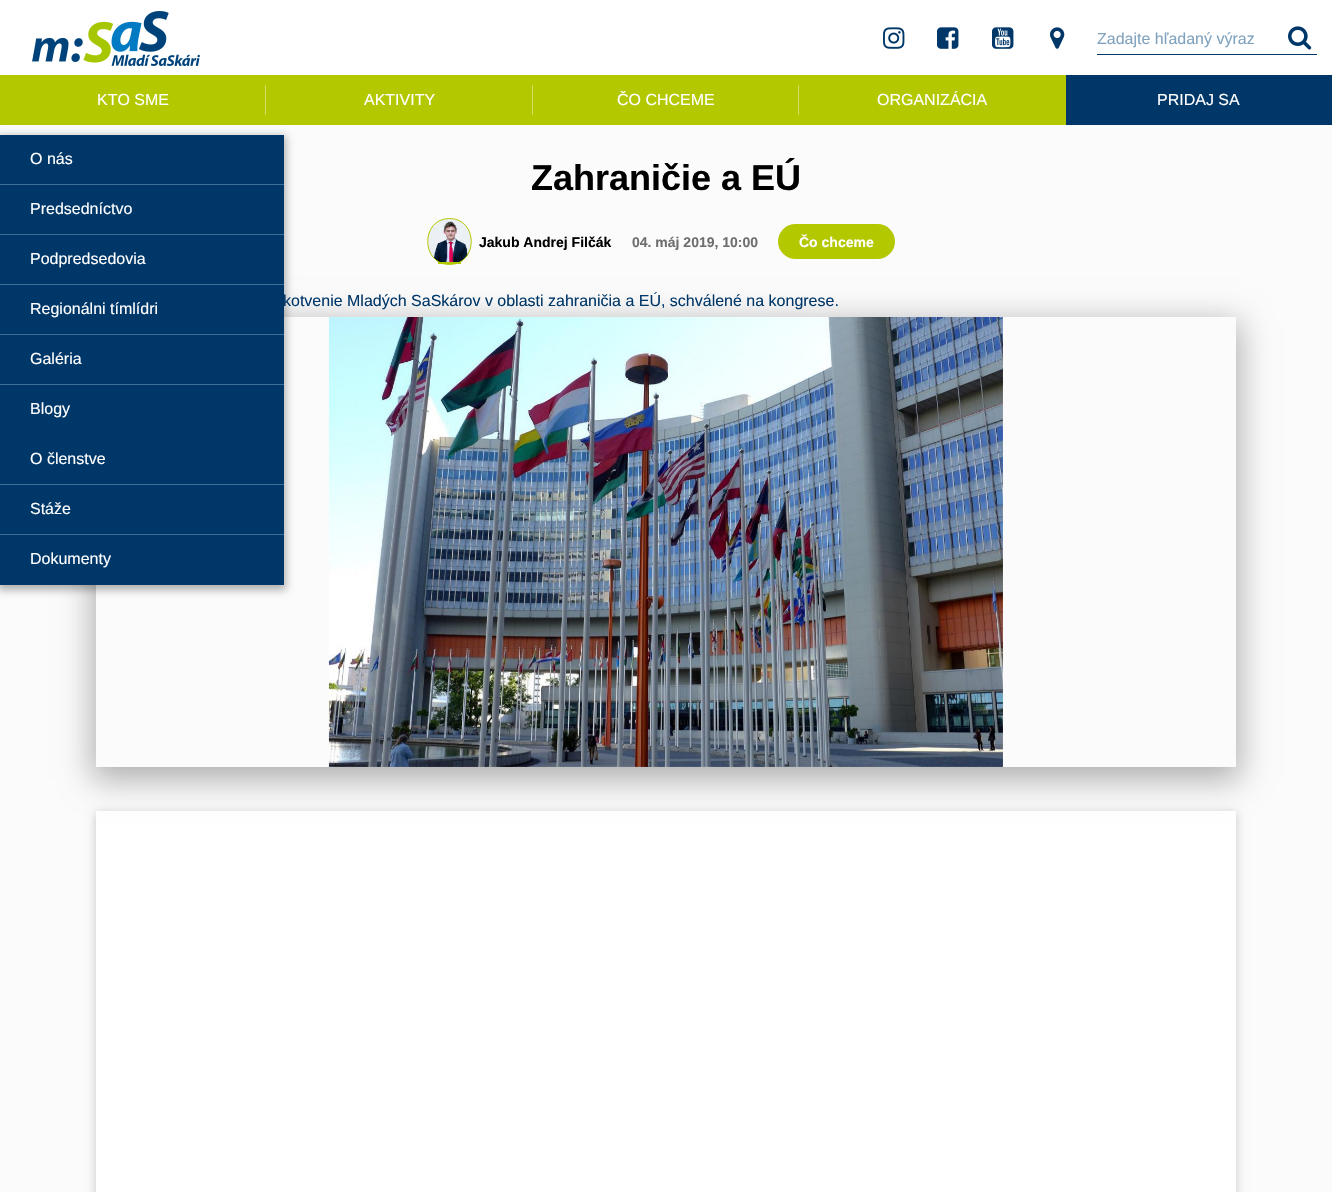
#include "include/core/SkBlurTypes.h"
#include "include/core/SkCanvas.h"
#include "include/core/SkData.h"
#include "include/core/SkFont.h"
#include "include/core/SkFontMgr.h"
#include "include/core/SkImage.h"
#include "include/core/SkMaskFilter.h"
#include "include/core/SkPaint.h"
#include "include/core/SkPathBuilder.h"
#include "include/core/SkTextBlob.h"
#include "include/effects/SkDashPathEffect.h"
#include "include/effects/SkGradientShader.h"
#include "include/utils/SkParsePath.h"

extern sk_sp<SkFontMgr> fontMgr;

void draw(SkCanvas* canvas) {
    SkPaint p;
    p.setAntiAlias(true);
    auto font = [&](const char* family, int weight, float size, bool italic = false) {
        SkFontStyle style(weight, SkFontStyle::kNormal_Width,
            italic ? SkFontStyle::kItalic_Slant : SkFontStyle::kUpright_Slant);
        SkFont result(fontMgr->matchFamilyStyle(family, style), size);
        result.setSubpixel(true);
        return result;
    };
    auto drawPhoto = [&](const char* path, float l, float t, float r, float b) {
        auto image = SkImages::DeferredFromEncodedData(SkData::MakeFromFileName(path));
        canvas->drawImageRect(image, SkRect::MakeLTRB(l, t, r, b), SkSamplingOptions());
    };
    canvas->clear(0xFFFBFBFB);
    p.setColor(0xFFFFFFFF);
    canvas->drawRect(SkRect::MakeLTRB(0, 0, 1332, 75), p);
    drawPhoto("media/1.png", 32, 11, 200, 66);
    drawPhoto("media/2.png", 883, 27, 905, 49);
    drawPhoto("media/3.png", 937, 27, 959, 49);
    drawPhoto("media/4.png", 992, 27, 1014, 49);
    drawPhoto("media/5.png", 1050, 27, 1065, 49);
    auto font1 = font("Liberation Sans", 400, 16);
    p.setColor(0xFF80A2BE);
    canvas->drawString("Zadajte hľadaný výraz", 1097, 44, font1, p);
    p.setColor(0xFF003769);
    canvas->drawRect(SkRect::MakeLTRB(1097, 54, 1317, 55), p);
    drawPhoto("media/6.png", 1288, 26, 1312, 50);
    p.setColor(0xFFB4C800);
    canvas->drawRect(SkRect::MakeLTRB(0, 75, 1066, 125), p);
    p.setColor(0xFFD2DE66);
    canvas->drawRect(SkRect::MakeLTRB(265, 85, 266, 115), p);
    p.setColor(0xFFFFFFFF);
    canvas->drawString("KTO SME", 97, 105, font1, p);
    p.setColor(0xFFD2DE66);
    canvas->drawRect(SkRect::MakeLTRB(532, 85, 533, 115), p);
    p.setColor(0xFFFFFFFF);
    canvas->drawString("AKTIVITY", 364, 105, font1, p);
    p.setColor(0xFFD2DE66);
    canvas->drawRect(SkRect::MakeLTRB(798, 85, 799, 115), p);
    p.setColor(0xFFFFFFFF);
    canvas->drawString("ČO CHCEME", 617, 105, font1, p);
    canvas->drawString("ORGANIZÁCIA", 877, 105, font1, p);
    p.setColor(0xFF003769);
    canvas->drawRect(SkRect::MakeLTRB(1066, 75, 1332, 125), p);
    p.setColor(0xFFFFFFFF);
    canvas->drawString("PRIDAJ SA", 1157, 105, font1, p);
    p.setColor(0x4D000000);
    p.setMaskFilter(SkMaskFilter::MakeBlur(kNormal_SkBlurStyle, 4));
    canvas->drawRect(SkRect::MakeLTRB(-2, 136, 286, 590), p);
    p.setMaskFilter(nullptr);
    p.setColor(0x33000000);
    p.setMaskFilter(SkMaskFilter::MakeBlur(kNormal_SkBlurStyle, 5));
    canvas->drawRect(SkRect::MakeLTRB(96, 813, 1236, 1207), p);
    p.setMaskFilter(nullptr);
    p.setColor(0xFFFFFFFF);
    canvas->drawRect(SkRect::MakeLTRB(96, 811, 1236, 1192), p);
    canvas->save();
    canvas->clipPath(SkPathBuilder(SkPathFillType::kEvenOdd).moveTo(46, 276).lineTo(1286, 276).lineTo(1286, 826).lineTo(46, 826).close().moveTo(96, 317).lineTo(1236, 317).lineTo(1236, 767).lineTo(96, 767).close().detach(), true);
    p.setColor(0x4D000000);
    p.setMaskFilter(SkMaskFilter::MakeBlur(kNormal_SkBlurStyle, 15));
    canvas->drawRect(SkRect::MakeLTRB(92, 322, 1240, 780), p);
    p.setMaskFilter(nullptr);
    canvas->restore();
    p.setColor(0xFF003769);
    canvas->drawRect(SkRect::MakeLTRB(0, 135, 284, 585), p);
    p.setColor(0xFF3E6F97);
    canvas->drawRect(SkRect::MakeLTRB(0, 184, 284, 185), p);
    p.setColor(0xFFFFFFFF);
    canvas->drawString("O nás", 30, 164, font1, p);
    p.setColor(0xFF3E6F97);
    canvas->drawRect(SkRect::MakeLTRB(0, 234, 284, 235), p);
    p.setColor(0xFFFFFFFF);
    canvas->drawString("Predsedníctvo", 30, 214, font1, p);
    p.setColor(0xFF3E6F97);
    canvas->drawRect(SkRect::MakeLTRB(0, 284, 284, 285), p);
    p.setColor(0xFFFFFFFF);
    canvas->drawString("Podpredsedovia", 30, 264, font1, p);
    p.setColor(0xFF3E6F97);
    canvas->drawRect(SkRect::MakeLTRB(0, 334, 284, 335), p);
    p.setColor(0xFFFFFFFF);
    canvas->drawString("Regionálni tímlídri", 30, 314, font1, p);
    p.setColor(0xFF3E6F97);
    canvas->drawRect(SkRect::MakeLTRB(0, 384, 284, 385), p);
    p.setColor(0xFFFFFFFF);
    canvas->drawString("Galéria", 30, 364, font1, p);
    canvas->drawString("Blogy", 30, 414, font1, p);
    p.setColor(0xFF3E6F97);
    canvas->drawRect(SkRect::MakeLTRB(0, 484, 284, 485), p);
    p.setColor(0xFFFFFFFF);
    canvas->drawString("O členstve", 30, 464, font1, p);
    p.setColor(0xFF3E6F97);
    canvas->drawRect(SkRect::MakeLTRB(0, 534, 284, 535), p);
    p.setColor(0xFFFFFFFF);
    canvas->drawString("Stáže", 30, 514, font1, p);
    canvas->drawString("Dokumenty", 30, 564, font1, p);
    auto font2 = font("Liberation Sans", 700, 36);
    p.setColor(0xFF000000);
    canvas->drawString("Zahraničie a EÚ", 531, 190, font2, p);
    drawPhoto("media/7.png", 428, 219, 471, 262);
    p.setStyle(SkPaint::kStroke_Style);
    p.setStrokeWidth(1);
    p.setColor(0xFFB4C800);
    canvas->drawPath(SkPathBuilder().moveTo(449.5f, 218.5f).cubicTo(478.5f, 218.5f, 478.5f, 264.5f, 449.5f, 264.5f).cubicTo(420.5f, 264.5f, 420.5f, 218.5f, 449.5f, 218.5f).close().detach(), p);
    p.setStyle(SkPaint::kFill_Style);
    canvas->drawRect(SkRect::MakeLTRB(438, 262, 461, 264), p);
    auto font3 = font("Liberation Sans", 700, 14);
    p.setColor(0xFF000000);
    canvas->drawString("Jakub Andrej Filčák", 479, 247, font3, p);
    p.setColor(0xFF6E6E6E);
    canvas->drawString("04. máj 2019, 10:00", 632, 247, font3, p);
    p.setColor(0xFFB4C800);
    canvas->drawRoundRect(SkRect::MakeLTRB(778, 224, 895, 259), 17.5f, 17.5f, p);
    p.setColor(0xFFFFFFFF);
    canvas->drawString("Čo chceme", 799, 247, font3, p);
    p.setColor(0xFF003769);
    canvas->drawString("kotvenie Mladých SaSkárov v oblasti zahraničia a EÚ, schválené na kongrese.", 283, 306, font1, p);
    drawPhoto("media/8.png", 328, 317, 1003, 767);
}
